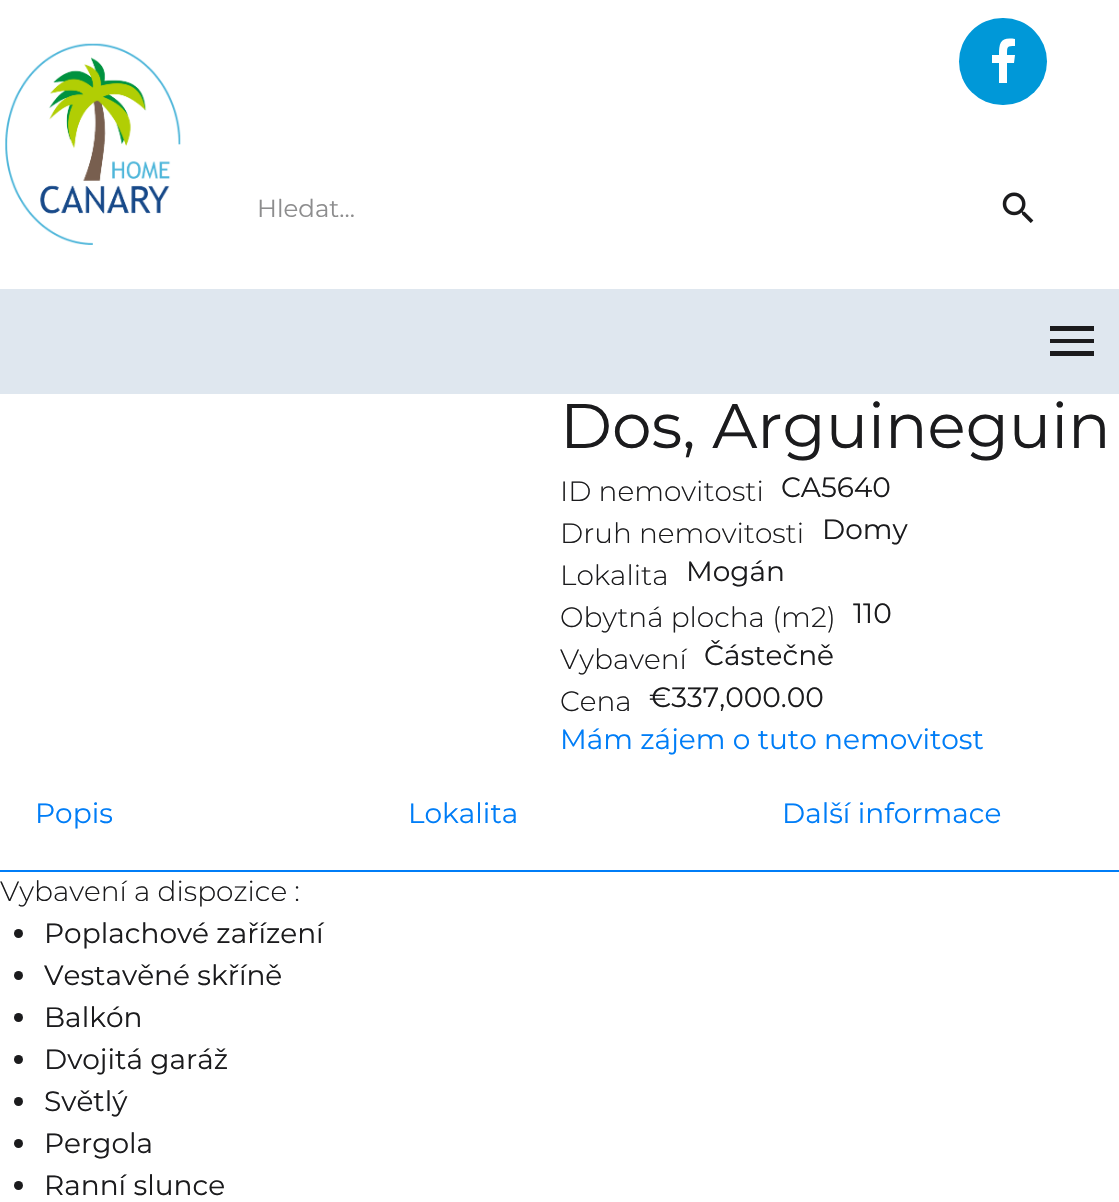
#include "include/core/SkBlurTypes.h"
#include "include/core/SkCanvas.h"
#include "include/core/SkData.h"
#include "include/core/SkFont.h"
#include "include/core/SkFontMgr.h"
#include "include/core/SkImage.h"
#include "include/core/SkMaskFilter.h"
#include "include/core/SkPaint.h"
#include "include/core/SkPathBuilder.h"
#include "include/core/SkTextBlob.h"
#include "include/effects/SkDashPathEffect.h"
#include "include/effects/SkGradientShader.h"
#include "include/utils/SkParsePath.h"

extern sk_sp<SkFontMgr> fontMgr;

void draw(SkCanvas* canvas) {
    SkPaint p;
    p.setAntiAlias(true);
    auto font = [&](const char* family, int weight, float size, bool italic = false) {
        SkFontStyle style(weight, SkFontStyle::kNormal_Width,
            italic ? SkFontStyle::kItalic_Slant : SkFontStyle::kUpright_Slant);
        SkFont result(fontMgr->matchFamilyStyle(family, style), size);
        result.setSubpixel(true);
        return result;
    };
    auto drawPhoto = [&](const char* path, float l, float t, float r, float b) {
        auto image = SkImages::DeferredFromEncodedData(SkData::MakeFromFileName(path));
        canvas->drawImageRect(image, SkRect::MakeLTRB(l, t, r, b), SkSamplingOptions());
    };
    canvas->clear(0xFFFFFFFF);
    drawPhoto("media/1.png", 5, 43, 181, 245);
    p.setColor(0xFF0098D8);
    canvas->drawRoundRect(SkRect::MakeLTRB(959, 18, 1047, 105), 43.5f, 43.5f, p);
    p.setColor(0xFFFFFFFF);
    canvas->drawPath(SkPathBuilder().moveTo(1007, 83).lineTo(999, 83).lineTo(999, 63).lineTo(992, 63).lineTo(992, 55).lineTo(999, 55).cubicTo(999, 42, 1001, 37, 1015, 39).lineTo(1015, 46).cubicTo(1007, 46, 1007, 46, 1007, 55).lineTo(1015, 55).lineTo(1014, 63).lineTo(1007, 63).close().detach(), p);
    auto font1 = font("Montserrat", 400, 24.5f);
    p.setColor(0xFF8D8D8E);
    canvas->drawString("Hledat...", 257, 217, font1, p);
    drawPhoto("media/2.png", 1002, 192, 1034, 223);
    p.setColor(0xFFDFE7EF);
    canvas->drawRect(SkRect::MakeLTRB(0, 289, 1119, 394), p);
    p.setColor(0xFF1B1B1D);
    canvas->drawPath(SkPathBuilder().moveTo(1050, 356).lineTo(1050, 351).lineTo(1094, 351).lineTo(1094, 356).close().moveTo(1050, 343).lineTo(1050, 339).lineTo(1094, 339).lineTo(1094, 343).close().moveTo(1050, 326).lineTo(1094, 326).lineTo(1094, 331).lineTo(1050, 331).close().detach(), p);
    auto font2 = font("Montserrat", 400, 63);
    canvas->drawString("Dos, Arguineguin", 560, 448, font2, p);
    auto font3 = font("Montserrat", 300, 28);
    canvas->drawString("ID nemovitosti", 560, 501, font3, p);
    auto font4 = font("Montserrat", 400, 28);
    canvas->drawString("CA5640", 781, 497, font4, p);
    canvas->drawString("Druh nemovitosti", 560, 543, font3, p);
    canvas->drawString("Domy", 822, 539, font4, p);
    canvas->drawString("Lokalita", 560, 585, font3, p);
    canvas->drawString("Mogán", 686, 581, font4, p);
    canvas->drawString("Obytná plocha (m2)", 560, 627, font3, p);
    canvas->drawString("110", 853, 623, font4, p);
    canvas->drawString("Vybavení", 560, 669, font3, p);
    canvas->drawString("Částečně", 704, 665, font4, p);
    canvas->drawString("Cena", 560, 711, font3, p);
    canvas->drawString("€337,000.00", 649, 707, font4, p);
    p.setColor(0xFF007DF7);
    canvas->drawString("Mám zájem o tuto nemovitost", 560, 749, font4, p);
    canvas->drawRect(SkRect::MakeLTRB(0, 870, 1119, 872), p);
    {
        const struct { const char* s; float x, y; } items[] = {
            {"Popis", 35, 823},
            {"Lokalita", 408, 823},
            {"Další informace", 782, 823},
        };
        for (auto [s, x, y] : items) {
            canvas->drawString(s, x, y, font4, p);
        }
    }
    p.setColor(0xFF1B1B1D);
    canvas->drawString("Vybavení a dispozice :", 0, 901, font3, p);
    canvas->drawCircle(18.5f, 933.5f, 4.5f, p);
    canvas->drawString("Poplachové zařízení", 44, 943, font4, p);
    canvas->drawCircle(18.5f, 975.5f, 4.5f, p);
    canvas->drawString("Vestavěné skříně", 44, 985, font4, p);
    canvas->drawCircle(18.5f, 1017.5f, 4.5f, p);
    canvas->drawString("Balkón", 44, 1027, font4, p);
    canvas->drawCircle(18.5f, 1059.5f, 4.5f, p);
    canvas->drawString("Dvojitá garáž", 44, 1069, font4, p);
    canvas->drawCircle(18.5f, 1101.5f, 4.5f, p);
    canvas->drawString("Světlý", 44, 1111, font4, p);
    canvas->drawCircle(18.5f, 1143.5f, 4.5f, p);
    canvas->drawString("Pergola", 44, 1153, font4, p);
    canvas->drawCircle(18.5f, 1185.5f, 4.5f, p);
    canvas->drawString("Ranní slunce", 44, 1195, font4, p);
}
